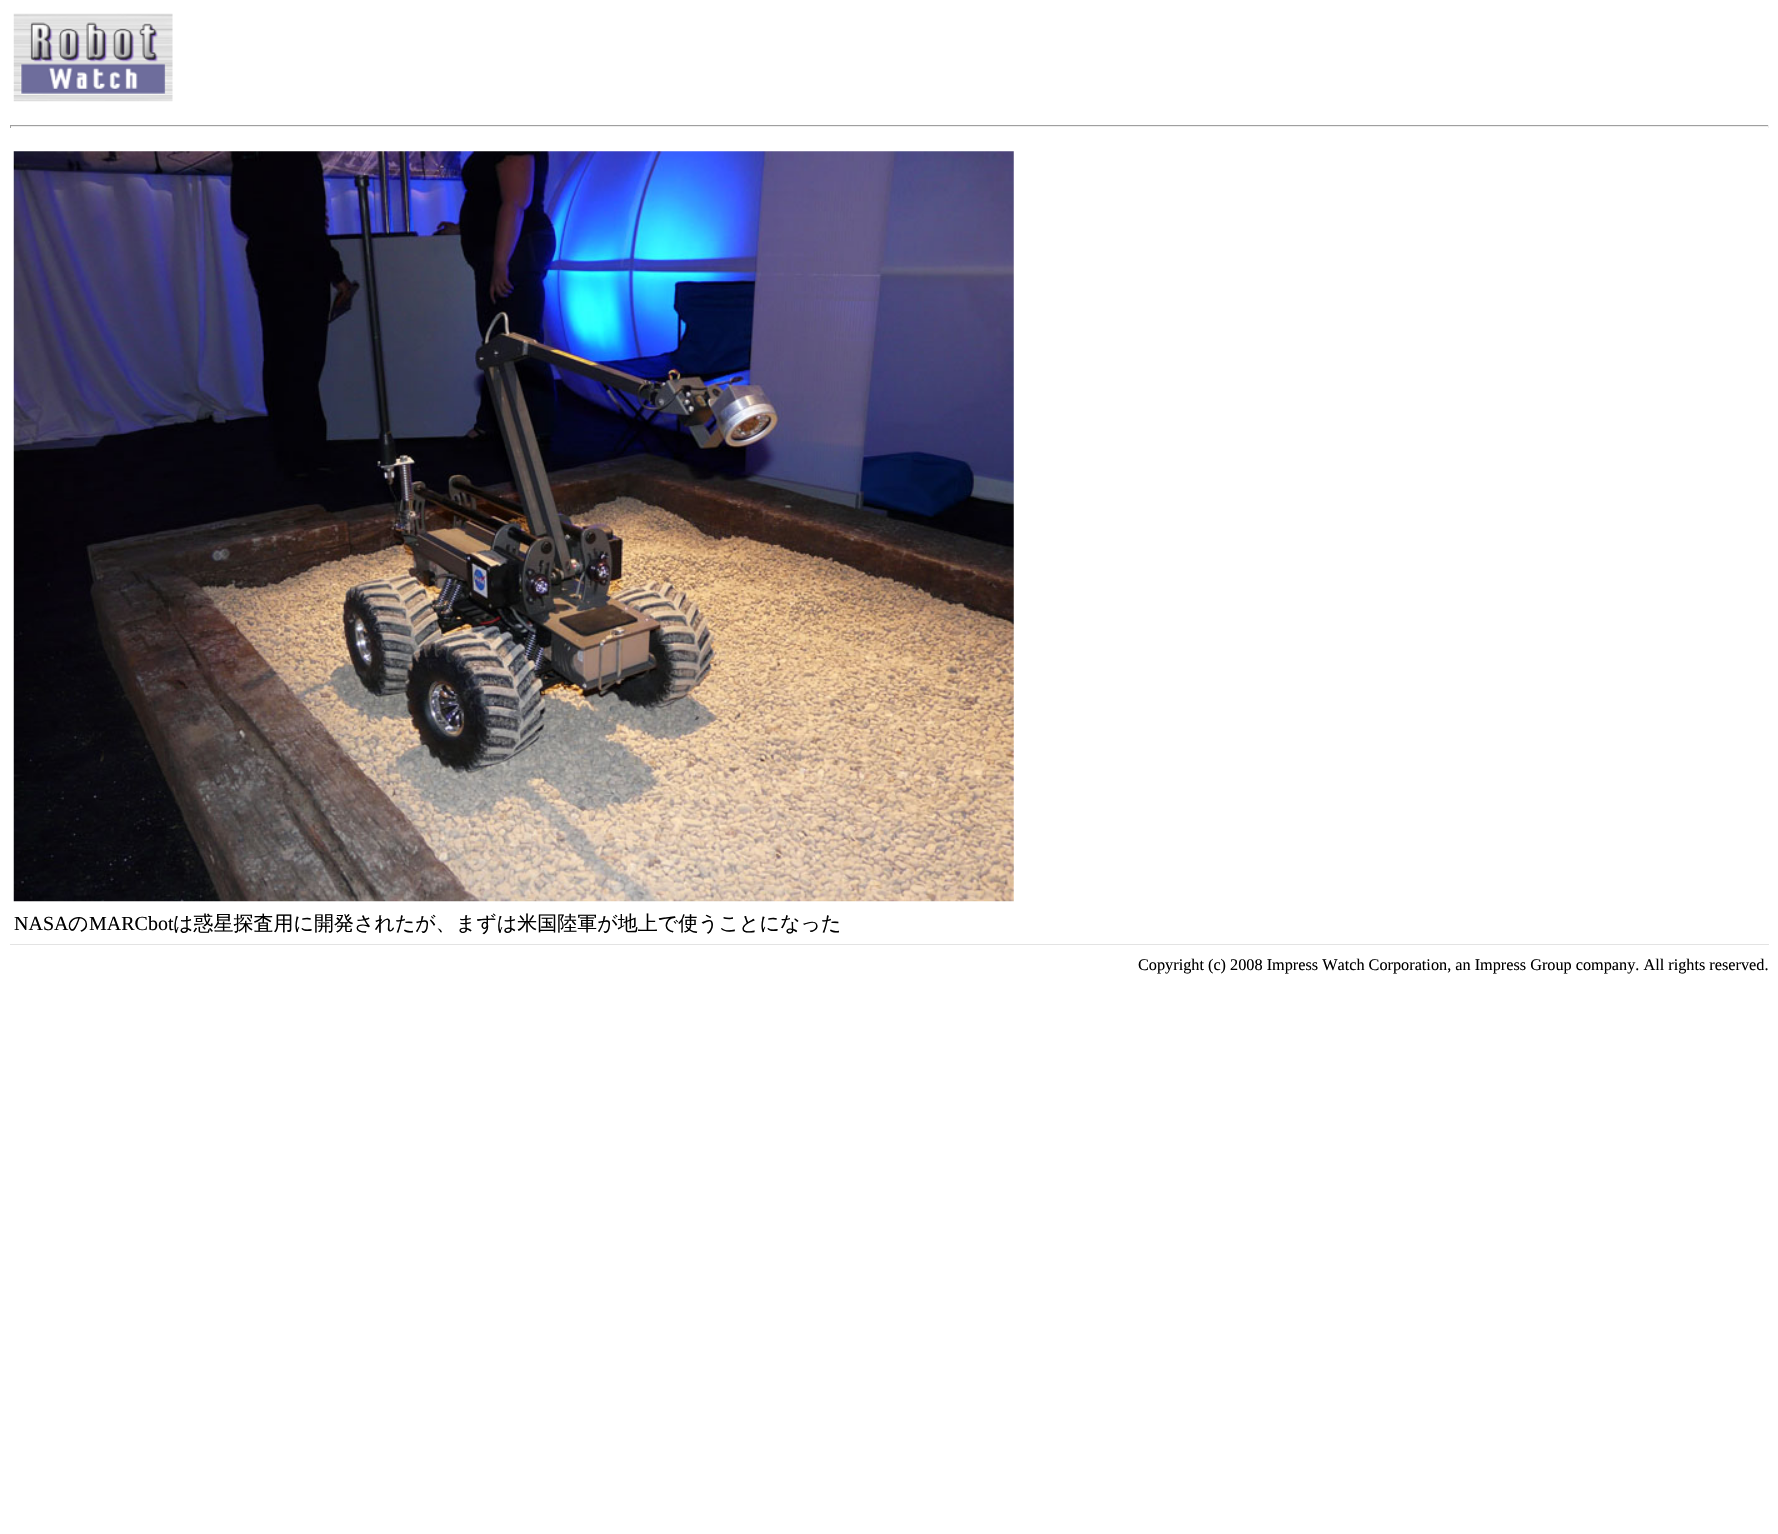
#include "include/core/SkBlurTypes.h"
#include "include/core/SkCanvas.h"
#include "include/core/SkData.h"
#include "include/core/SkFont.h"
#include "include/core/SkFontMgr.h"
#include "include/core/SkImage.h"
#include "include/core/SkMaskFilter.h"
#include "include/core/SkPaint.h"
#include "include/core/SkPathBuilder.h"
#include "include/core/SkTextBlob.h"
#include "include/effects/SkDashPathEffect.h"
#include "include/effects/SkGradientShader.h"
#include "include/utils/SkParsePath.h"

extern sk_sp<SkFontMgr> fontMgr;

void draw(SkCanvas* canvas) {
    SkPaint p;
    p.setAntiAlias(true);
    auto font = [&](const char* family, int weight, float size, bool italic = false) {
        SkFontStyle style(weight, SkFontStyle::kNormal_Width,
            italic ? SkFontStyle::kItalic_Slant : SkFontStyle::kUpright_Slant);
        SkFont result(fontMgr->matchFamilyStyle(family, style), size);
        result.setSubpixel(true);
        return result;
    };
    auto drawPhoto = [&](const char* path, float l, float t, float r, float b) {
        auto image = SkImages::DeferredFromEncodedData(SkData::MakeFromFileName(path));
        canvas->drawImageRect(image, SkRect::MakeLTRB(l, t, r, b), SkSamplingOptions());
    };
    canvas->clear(0xFFFFFFFF);
    drawPhoto("media/1.png", 13, 13, 173, 102);
    {
        const struct { float l, t, r, b; SkColor color; } items[] = {
            {10, 125, 1769, 126, 0xFF9F9F9F},
            {1768, 125, 1769, 128, 0xFFEEEEEE},
            {10, 126, 1769, 127, 0xFFEEEEEE},
            {10, 125, 11, 128, 0xFF9F9F9F},
        };
        for (auto [l, t, r, b, color] : items) {
            p.setColor(color);
            canvas->drawRect(SkRect::MakeLTRB(l, t, r, b), p);
        }
    }
    drawPhoto("media/2.png", 13, 151, 1014, 902);
    auto font1 = font("Liberation Serif", 400, 20);
    p.setColor(0xFF000000);
    canvas->drawString("NASA", 14, 930, font1, p);
    auto font2 = font("WenQuanYi Zen Hei", 500, 20);
    canvas->drawString("の", 68, 930, font2, p);
    canvas->drawString("MARCbot", 89, 930, font1, p);
    canvas->drawString("は惑星探査用に開発されたが、まずは米国陸軍が地上で使うことになった", 173, 930, font2, p);
    p.setColor(0xFFE3E3E3);
    canvas->drawRect(SkRect::MakeLTRB(10, 944, 1769, 945), p);
    auto font3 = font("Liberation Serif", 400, 16.25f);
    p.setColor(0xFF000000);
    canvas->drawString("Copyright (c) 2008 Impress Watch Corporation, an Impress Group company. All rights reserved.", 1138, 970, font3, p);
}
